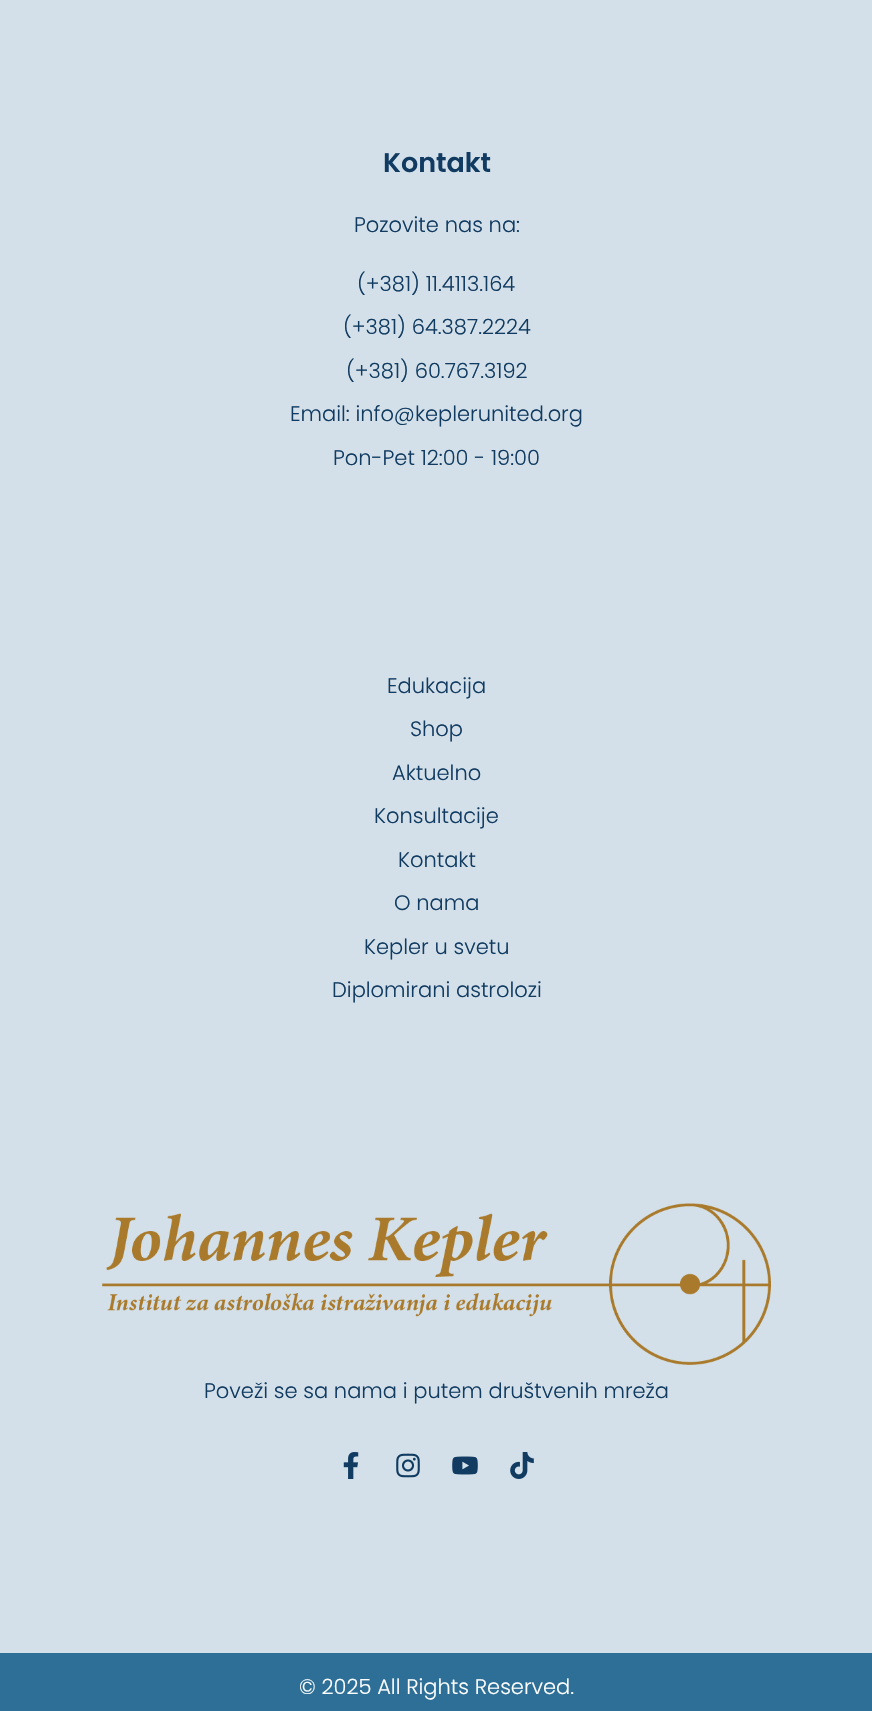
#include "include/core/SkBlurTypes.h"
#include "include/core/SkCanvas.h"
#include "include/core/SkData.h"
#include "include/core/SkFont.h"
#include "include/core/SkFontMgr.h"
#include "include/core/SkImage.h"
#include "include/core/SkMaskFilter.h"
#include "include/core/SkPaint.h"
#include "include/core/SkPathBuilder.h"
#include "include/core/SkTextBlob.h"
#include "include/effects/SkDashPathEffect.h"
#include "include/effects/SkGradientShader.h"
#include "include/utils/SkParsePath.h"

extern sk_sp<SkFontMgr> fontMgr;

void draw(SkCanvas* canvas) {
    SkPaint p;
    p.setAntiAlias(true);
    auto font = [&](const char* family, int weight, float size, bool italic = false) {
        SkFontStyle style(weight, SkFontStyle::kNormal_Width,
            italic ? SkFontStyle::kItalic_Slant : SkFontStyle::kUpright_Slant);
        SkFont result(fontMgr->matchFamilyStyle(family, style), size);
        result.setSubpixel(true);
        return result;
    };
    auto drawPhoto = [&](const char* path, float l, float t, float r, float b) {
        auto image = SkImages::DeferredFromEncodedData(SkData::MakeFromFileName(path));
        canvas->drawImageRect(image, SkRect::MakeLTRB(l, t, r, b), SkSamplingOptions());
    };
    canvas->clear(0xFFD3E0E9);
    auto font1 = font("Poppins", 600, 27);
    p.setColor(0xFF113B61);
    canvas->drawString("Kontakt", 383, 172, font1, p);
    auto font2 = font("Poppins", 300, 21);
    {
        const struct { const char* s; float x, y; } items[] = {
            {"Pozovite nas na:", 354, 232},
            {"(+381) 11.4113.164", 357, 291},
            {"(+381) 64.387.2224", 343, 334},
            {"(+381) 60.767.3192", 346, 378},
            {"Email: info@keplerunited.org", 290, 421},
            {"Pon-Pet 12:00 - 19:00", 333, 465},
            {"Edukacija", 387, 693},
            {"Shop", 410, 736},
            {"Aktuelno", 392, 780},
            {"Konsultacije", 374, 823},
            {"Kontakt", 398, 867},
            {"O nama", 394, 910},
            {"Kepler u svetu", 364, 954},
            {"Diplomirani astrolozi", 332, 997},
        };
        for (auto [s, x, y] : items) {
            canvas->drawString(s, x, y, font2, p);
        }
    }
    drawPhoto("media/1.png", 102, 1203, 771, 1365);
    canvas->drawString("Poveži se sa nama i putem društvenih mreža", 204, 1398, font2, p);
    drawPhoto("media/2.png", 343, 1452, 359, 1479);
    drawPhoto("media/3.png", 396, 1453, 420, 1478);
    drawPhoto("media/4.png", 452, 1456, 478, 1475);
    drawPhoto("media/5.png", 510, 1452, 534, 1479);
    p.setColor(0xFF2D6F96);
    canvas->drawRect(SkRect::MakeLTRB(0, 1653, 872, 1711), p);
    p.setColor(0xFFFFFFFF);
    canvas->drawString("© 2025 All Rights Reserved.", 299, 1694, font2, p);
}
